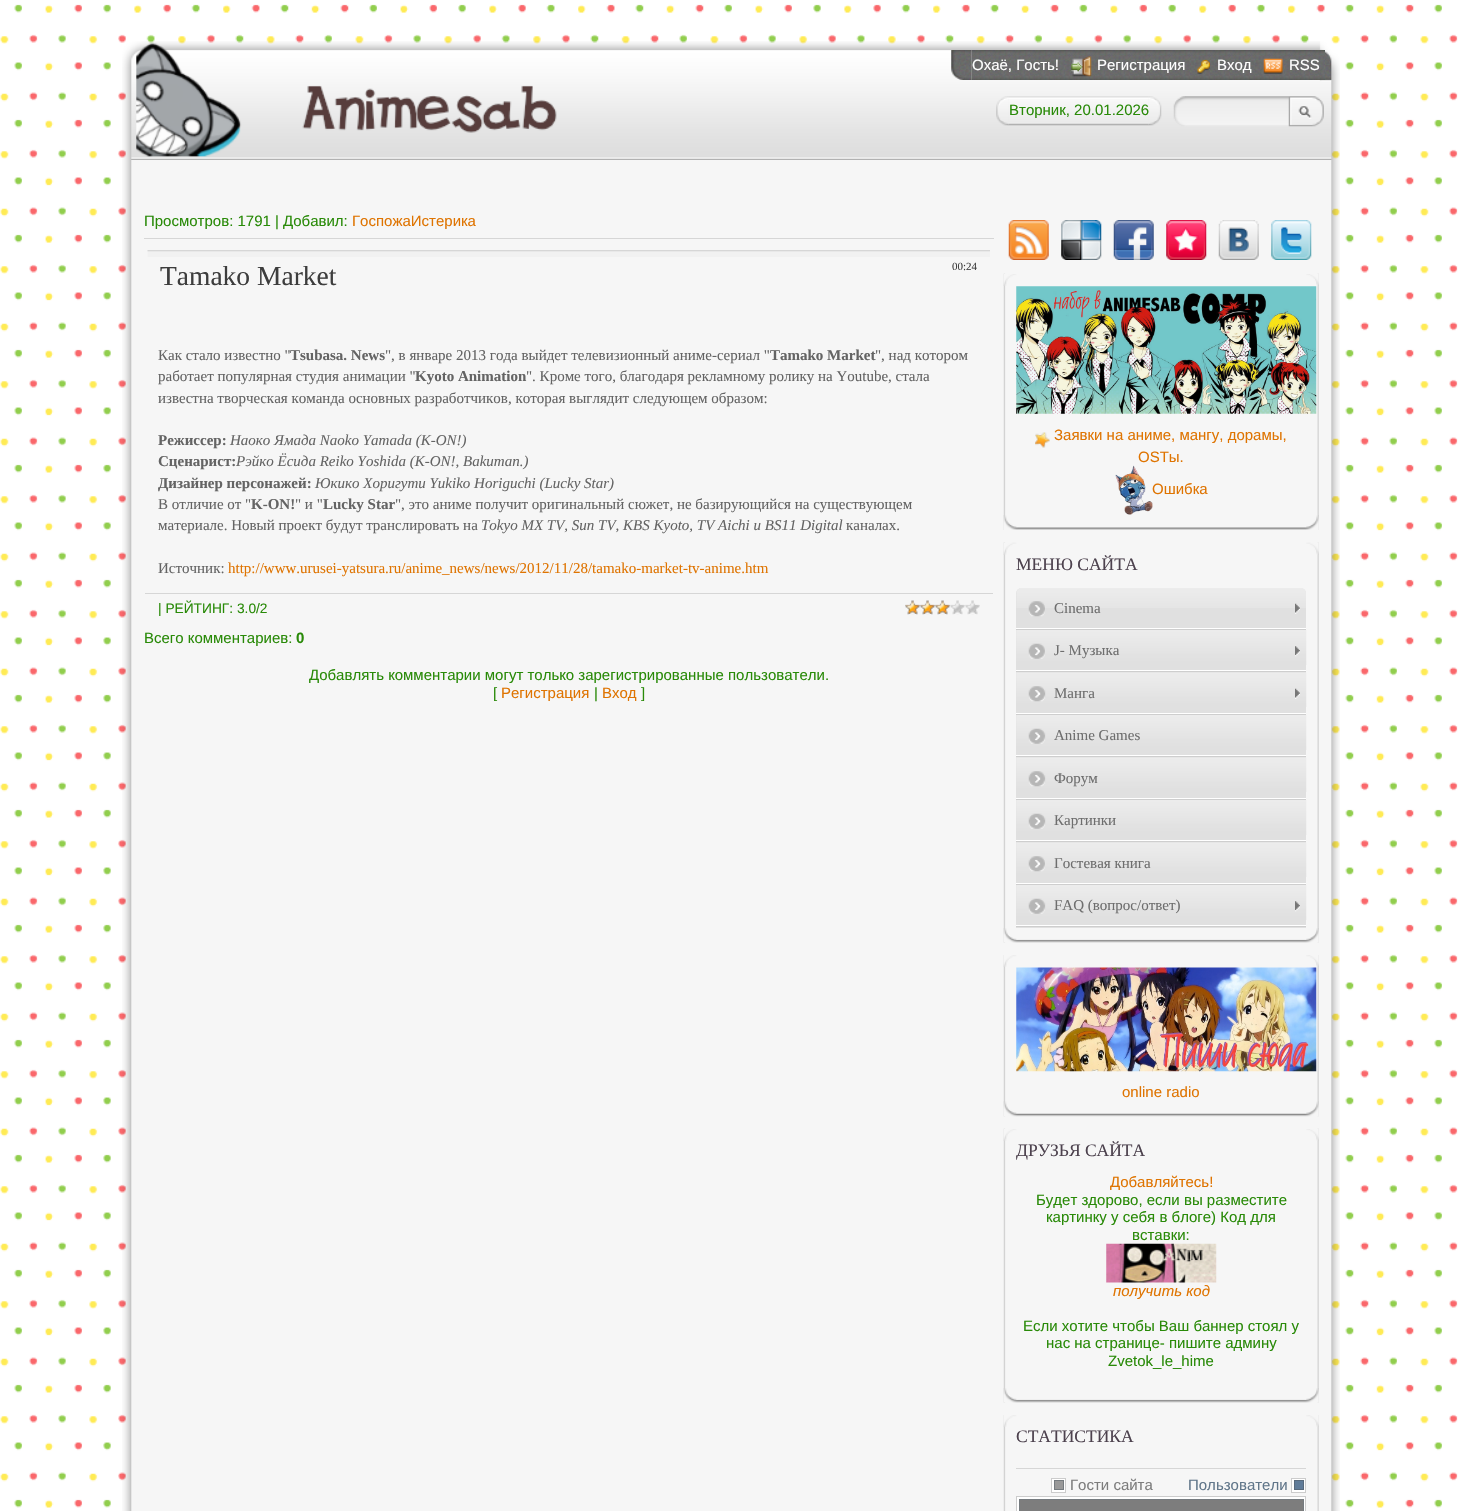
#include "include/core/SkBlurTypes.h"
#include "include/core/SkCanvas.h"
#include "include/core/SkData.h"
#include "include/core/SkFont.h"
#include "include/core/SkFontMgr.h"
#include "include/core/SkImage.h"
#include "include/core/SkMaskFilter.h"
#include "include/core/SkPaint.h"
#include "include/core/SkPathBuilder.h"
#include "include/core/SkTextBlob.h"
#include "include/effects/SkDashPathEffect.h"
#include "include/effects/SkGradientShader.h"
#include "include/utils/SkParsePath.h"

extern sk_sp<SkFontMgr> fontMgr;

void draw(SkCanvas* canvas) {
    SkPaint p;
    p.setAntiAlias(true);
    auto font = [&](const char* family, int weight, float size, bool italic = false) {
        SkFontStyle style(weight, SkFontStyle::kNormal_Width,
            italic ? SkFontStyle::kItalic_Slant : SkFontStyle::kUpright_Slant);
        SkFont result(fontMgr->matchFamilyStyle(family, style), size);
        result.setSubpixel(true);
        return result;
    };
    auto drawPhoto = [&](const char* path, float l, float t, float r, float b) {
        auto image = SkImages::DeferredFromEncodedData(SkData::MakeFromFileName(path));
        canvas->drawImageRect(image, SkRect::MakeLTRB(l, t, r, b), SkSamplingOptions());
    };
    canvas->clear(0xFFFFFFFF);
    drawPhoto("media/1.png", 0, 0, 1462, 1511);
    drawPhoto("media/2.png", 122, 41, 1340, 160);
    drawPhoto("media/4.png", 971, 50, 1325, 80);
    drawPhoto("media/3.png", 951, 50, 972, 80);
    auto font1 = font("Liberation Sans", 400, 15);
    p.setColor(0xFFFFFFFF);
    canvas->drawString("Охаё, Гость!", 972, 70, font1, p);
    drawPhoto("media/5.png", 1071, 56, 1092, 77);
    canvas->drawString("Регистрация", 1097, 70, font1, p);
    drawPhoto("media/6.png", 1197, 59, 1210, 74);
    canvas->drawString("Вход", 1217, 70, font1, p);
    drawPhoto("media/7.png", 1263, 58, 1283, 74);
    canvas->drawString("RSS", 1289, 70, font1, p);
    drawPhoto("media/10.png", 1148, 96, 1162, 126);
    drawPhoto("media/9.png", 1008, 96, 1149, 126);
    drawPhoto("media/8.png", 996, 96, 1009, 126);
    p.setColor(0xFF298A08);
    canvas->drawString("Вторник, 20.01.2026", 1009, 115, font1, p);
    drawPhoto("media/11.png", 1173, 96, 1324, 127);
    drawPhoto("media/12.png", 122, 160, 1340, 1511);
    canvas->drawString("Просмотров: 1791 | Добавил:", 144, 226, font1, p);
    p.setColor(0xFFDF7401);
    canvas->drawString("ГоспожаИстерика", 352, 226, font1, p);
    p.setColor(0xFFD6D6D6);
    canvas->drawRect(SkRect::MakeLTRB(144, 238, 994, 239), p);
    drawPhoto("media/13.png", 147, 250, 990, 257);
    auto font2 = font("Liberation Serif", 400, 27.5f);
    p.setColor(0xFF3D3D3D);
    canvas->drawString("Tamako Market", 160, 285, font2, p);
    auto font3 = font("Liberation Serif", 400, 11);
    canvas->drawString("00:24", 952, 270, font3, p);
    auto font4 = font("Liberation Serif", 400, 15);
    p.setColor(0xFF646464);
    canvas->drawString("Как стало известно \"", 158, 360, font4, p);
    auto font5 = font("Liberation Serif", 700, 15);
    canvas->drawString("Tsubasa. News", 290, 360, font5, p);
    canvas->drawString("\", в январе 2013 года выйдет телевизионный аниме-сериал \"", 385, 360, font4, p);
    canvas->drawString("Tamako Market", 770, 360, font5, p);
    canvas->drawString("\", над котором", 875, 360, font4, p);
    canvas->drawString("работает популярная студия анимации \"", 158, 381, font4, p);
    canvas->drawString("Kyoto Animation", 415, 381, font5, p);
    canvas->drawString("\". Кроме того, благодаря рекламному ролику на Youtube, стала", 526, 381, font4, p);
    canvas->drawString("известна творческая команда основных разработчиков, которая выглядит следующем образом:", 158, 403, font4, p);
    canvas->drawString("Режиссер:", 158, 445, font5, p);
    auto font6 = font("Liberation Serif", 400, 15, true);
    canvas->drawString("Наоко Ямада Naoko Yamada (K-ON!)", 230, 445, font6, p);
    canvas->drawString("Сценарист:", 158, 466, font5, p);
    canvas->drawString("Рэйко Ёсида Reiko Yoshida (K-ON!, Bakuman.)", 236, 466, font6, p);
    canvas->drawString("Дизайнер персонажей:", 158, 488, font5, p);
    canvas->drawString("Юкико Хоригути Yukiko Horiguchi (Lucky Star)", 315, 488, font6, p);
    canvas->drawString("В отличие от \"", 158, 509, font4, p);
    canvas->drawString("K-ON!", 251, 509, font5, p);
    canvas->drawString("\" и \"", 295, 509, font4, p);
    canvas->drawString("Lucky Star", 323, 509, font5, p);
    canvas->drawString("\", это аниме получит оригинальный сюжет, не базирующийся на существующем", 395, 509, font4, p);
    canvas->drawString("материале. Новый проект будут транслировать на", 158, 530, font4, p);
    canvas->drawString("Tokyo MX TV, Sun TV, KBS Kyoto, TV Aichi и BS11 Digital", 481, 530, font6, p);
    canvas->drawString("каналах.", 846, 530, font4, p);
    canvas->drawString("Источник:", 158, 573, font4, p);
    p.setColor(0xFFDF7401);
    canvas->drawString("http://www.urusei-yatsura.ru/anime_news/news/2012/11/28/tamako-market-tv-anime.htm", 228, 573, font4, p);
    p.setColor(0xFFD6D6D6);
    canvas->drawRect(SkRect::MakeLTRB(145, 593, 993, 594), p);
    auto font7 = font("Liberation Sans", 400, 13.75f);
    p.setColor(0xFF298A08);
    canvas->drawString("| РЕЙТИНГ: 3.0/2", 158, 613, font7, p);
    drawPhoto("media/14.png", 905, 600, 980, 615);
    drawPhoto("media/15.png", 905, 600, 950, 615);
    canvas->drawString("Всего комментариев:", 144, 643, font1, p);
    auto font8 = font("Liberation Sans", 700, 15);
    canvas->drawString("0", 296, 643, font8, p);
    canvas->drawString("Добавлять комментарии могут только зарегистрированные пользователи.", 309, 680, font1, p);
    canvas->drawString("[", 493, 698, font1, p);
    p.setColor(0xFFDF7401);
    canvas->drawString("Регистрация", 501, 698, font1, p);
    p.setColor(0xFF298A08);
    canvas->drawString("|", 594, 698, font1, p);
    p.setColor(0xFFDF7401);
    canvas->drawString("Вход", 602, 698, font1, p);
    p.setColor(0xFF298A08);
    canvas->drawString("]", 641, 698, font1, p);
    drawPhoto("media/16.png", 1008, 220, 1049, 260);
    drawPhoto("media/17.png", 1061, 220, 1102, 260);
    drawPhoto("media/18.png", 1113, 220, 1154, 260);
    drawPhoto("media/19.png", 1166, 220, 1207, 260);
    drawPhoto("media/20.png", 1218, 220, 1259, 260);
    drawPhoto("media/21.png", 1271, 220, 1312, 260);
    drawPhoto("media/22.png", 1003, 273, 1319, 530);
    drawPhoto("media/23.png", 1003, 274, 1319, 286);
    drawPhoto("media/24.png", 1016, 286, 1317, 414);
    drawPhoto("media/25.png", 1035, 432, 1050, 448);
    p.setColor(0xFFDF7401);
    canvas->drawString("Заявки на аниме, мангу, дорамы,", 1054, 440, font1, p);
    canvas->drawString("OSTы.", 1138, 462, font1, p);
    drawPhoto("media/26.png", 1115, 465, 1153, 515);
    canvas->drawString("Ошибка", 1152, 494, font1, p);
    drawPhoto("media/27.png", 1003, 515, 1319, 530);
    drawPhoto("media/28.png", 1003, 542, 1319, 943);
    drawPhoto("media/29.png", 1003, 542, 1319, 555);
    auto font9 = font("Liberation Serif", 400, 17.5f);
    p.setColor(0xFF4D424E);
    canvas->drawString("МЕНЮ САЙТА", 1016, 570, font9, p);
    p.setColor(0xFFE0E0E0);
    canvas->drawPath(SkPathBuilder().moveTo(1022, 588).lineTo(1300, 588).cubicTo(1303.5f, 588, 1306, 590.5f, 1306, 594).lineTo(1306, 630).lineTo(1016, 630).lineTo(1016, 594).cubicTo(1016, 590.5f, 1018.5f, 588, 1022, 588).close().detach(), p);
    drawPhoto("media/30.png", 1016, 588, 1306, 608);
    p.setColor(0xFFCECECE);
    canvas->drawRect(SkRect::MakeLTRB(1016, 629, 1306, 630), p);
    p.setColor(0xFFFFFFFF);
    canvas->drawRect(SkRect::MakeLTRB(1016, 628, 1306, 629), p);
    drawPhoto("media/31.png", 1028, 601, 1045, 617);
    p.setColor(0xFF6E6E6E);
    canvas->drawString("Cinema", 1054, 613, font4, p);
    drawPhoto("media/32.png", 1295, 603, 1300, 614);
    p.setColor(0xFFE0E0E0);
    canvas->drawRect(SkRect::MakeLTRB(1016, 630, 1306, 713), p);
    drawPhoto("media/33.png", 1016, 630, 1307, 665);
    p.setColor(0xFFCECECE);
    canvas->drawRect(SkRect::MakeLTRB(1016, 671, 1306, 672), p);
    p.setColor(0xFFFFFFFF);
    canvas->drawRect(SkRect::MakeLTRB(1016, 670, 1306, 671), p);
    drawPhoto("media/34.png", 1028, 643, 1045, 659);
    p.setColor(0xFF6E6E6E);
    canvas->drawString("J- Музыка", 1054, 655, font4, p);
    drawPhoto("media/35.png", 1295, 646, 1300, 657);
    drawPhoto("media/36.png", 1016, 672, 1307, 707);
    p.setColor(0xFFCECECE);
    canvas->drawRect(SkRect::MakeLTRB(1016, 714, 1306, 715), p);
    p.setColor(0xFFFFFFFF);
    canvas->drawRect(SkRect::MakeLTRB(1016, 713, 1306, 714), p);
    drawPhoto("media/37.png", 1028, 686, 1046, 702);
    p.setColor(0xFF6E6E6E);
    canvas->drawString("Манга", 1054, 698, font4, p);
    drawPhoto("media/38.png", 1295, 688, 1300, 699);
    p.setColor(0xFFE0E0E0);
    canvas->drawRect(SkRect::MakeLTRB(1016, 715, 1306, 798), p);
    drawPhoto("media/33.png", 1016, 715, 1307, 750);
    p.setColor(0xFFCECECE);
    canvas->drawRect(SkRect::MakeLTRB(1016, 756, 1306, 757), p);
    p.setColor(0xFFFFFFFF);
    canvas->drawRect(SkRect::MakeLTRB(1016, 755, 1306, 756), p);
    drawPhoto("media/39.png", 1028, 728, 1046, 744);
    p.setColor(0xFF6E6E6E);
    canvas->drawString("Anime Games", 1054, 740, font4, p);
    drawPhoto("media/36.png", 1016, 757, 1307, 792);
    p.setColor(0xFFCECECE);
    canvas->drawRect(SkRect::MakeLTRB(1016, 799, 1306, 800), p);
    p.setColor(0xFFFFFFFF);
    canvas->drawRect(SkRect::MakeLTRB(1016, 798, 1306, 799), p);
    drawPhoto("media/40.png", 1028, 771, 1046, 787);
    p.setColor(0xFF6E6E6E);
    canvas->drawString("Форум", 1054, 783, font4, p);
    p.setColor(0xFFE0E0E0);
    canvas->drawRect(SkRect::MakeLTRB(1016, 800, 1306, 883), p);
    drawPhoto("media/33.png", 1016, 800, 1307, 835);
    p.setColor(0xFFCECECE);
    canvas->drawRect(SkRect::MakeLTRB(1016, 841, 1306, 842), p);
    p.setColor(0xFFFFFFFF);
    canvas->drawRect(SkRect::MakeLTRB(1016, 840, 1306, 841), p);
    drawPhoto("media/41.png", 1028, 813, 1046, 829);
    p.setColor(0xFF6E6E6E);
    canvas->drawString("Картинки", 1054, 825, font4, p);
    drawPhoto("media/36.png", 1016, 842, 1307, 877);
    p.setColor(0xFFCECECE);
    canvas->drawRect(SkRect::MakeLTRB(1016, 884, 1306, 885), p);
    p.setColor(0xFFFFFFFF);
    canvas->drawRect(SkRect::MakeLTRB(1016, 883, 1306, 884), p);
    drawPhoto("media/42.png", 1028, 856, 1045, 872);
    p.setColor(0xFF6E6E6E);
    canvas->drawString("Гостевая книга", 1054, 868, font4, p);
    p.setColor(0xFFE0E0E0);
    canvas->drawRect(SkRect::MakeLTRB(1016, 885, 1306, 928), p);
    drawPhoto("media/33.png", 1016, 885, 1307, 920);
    p.setColor(0xFFCECECE);
    canvas->drawRect(SkRect::MakeLTRB(1016, 926, 1306, 927), p);
    p.setColor(0xFFFFFFFF);
    canvas->drawRect(SkRect::MakeLTRB(1016, 925, 1306, 926), p);
    drawPhoto("media/43.png", 1028, 898, 1046, 914);
    p.setColor(0xFF6E6E6E);
    canvas->drawString("FAQ (вопрос/ответ)", 1054, 910, font4, p);
    drawPhoto("media/35.png", 1295, 901, 1300, 912);
    drawPhoto("media/44.png", 1003, 928, 1319, 943);
    drawPhoto("media/45.png", 1003, 955, 1319, 1117);
    drawPhoto("media/46.png", 1003, 955, 1319, 967);
    drawPhoto("media/47.png", 1016, 967, 1317, 1072);
    p.setColor(0xFFDF7401);
    canvas->drawString("online radio", 1122, 1097, font1, p);
    drawPhoto("media/48.png", 1003, 1101, 1319, 1117);
    drawPhoto("media/49.png", 1003, 1128, 1319, 1403);
    drawPhoto("media/23.png", 1003, 1129, 1319, 1141);
    p.setColor(0xFF4D424E);
    canvas->drawString("ДРУЗЬЯ САЙТА", 1016, 1156, font9, p);
    p.setColor(0xFFDF7401);
    canvas->drawString("Добавляйтесь!", 1110, 1187, font1, p);
    p.setColor(0xFF298A08);
    {
        const struct { const char* s; float x, y; } items[] = {
            {"Будет здорово, если вы разместите", 1036, 1205},
            {"картинку у себя в блоге) Код для", 1046, 1222},
            {"вставки:", 1132, 1240},
        };
        for (auto [s, x, y] : items) {
            canvas->drawString(s, x, y, font1, p);
        }
    }
    drawPhoto("media/50.png", 1106, 1243, 1217, 1283);
    auto font10 = font("Liberation Sans", 400, 15, true);
    p.setColor(0xFFDF7401);
    canvas->drawString("получить код", 1113, 1296, font10, p);
    p.setColor(0xFF298A08);
    {
        const struct { const char* s; float x, y; } items[] = {
            {"Если хотите чтобы Ваш баннер стоял у", 1023, 1331},
            {"нас на странице- пишите админу", 1046, 1348},
            {"Zvetok_le_hime", 1108, 1366},
        };
        for (auto [s, x, y] : items) {
            canvas->drawString(s, x, y, font1, p);
        }
    }
    drawPhoto("media/44.png", 1003, 1388, 1319, 1403);
    drawPhoto("media/51.png", 1003, 1415, 1319, 1511);
    drawPhoto("media/46.png", 1003, 1415, 1319, 1427);
    p.setColor(0xFF4D424E);
    canvas->drawString("СТАТИСТИКА", 1016, 1442, font9, p);
    p.setColor(0xFFD6D6D6);
    canvas->drawRect(SkRect::MakeLTRB(1016, 1468, 1306, 1469), p);
    p.setColor(0xFFFFFFFF);
    canvas->drawRect(SkRect::MakeLTRB(1051.5f, 1478.5f, 1065.5f, 1492.5f), p);
    p.setStyle(SkPaint::kStroke_Style);
    p.setStrokeWidth(1);
    p.setColor(0xFFCCCCCC);
    canvas->drawRect(SkRect::MakeLTRB(1051.5f, 1478.5f, 1065.5f, 1492.5f), p);
    p.setStyle(SkPaint::kFill_Style);
    p.setColor(0xFF999999);
    canvas->drawRect(SkRect::MakeLTRB(1054.5f, 1480.5f, 1063.5f, 1489.5f), p);
    p.setStyle(SkPaint::kStroke_Style);
    p.setColor(0xFF757B7F);
    canvas->drawRect(SkRect::MakeLTRB(1054.5f, 1480.5f, 1063.5f, 1489.5f), p);
    p.setStyle(SkPaint::kFill_Style);
    p.setColor(0xFF7D7D7D);
    canvas->drawString("Гости сайта", 1070, 1490, font1, p);
    p.setColor(0xFF61768A);
    canvas->drawString("Пользователи", 1188, 1490, font1, p);
    p.setColor(0xFFFFFFFF);
    canvas->drawRect(SkRect::MakeLTRB(1291.5f, 1478.5f, 1305.5f, 1492.5f), p);
    p.setStyle(SkPaint::kStroke_Style);
    p.setColor(0xFFCCCCCC);
    canvas->drawRect(SkRect::MakeLTRB(1291.5f, 1478.5f, 1305.5f, 1492.5f), p);
    p.setStyle(SkPaint::kFill_Style);
    p.setColor(0xFF607C99);
    canvas->drawRect(SkRect::MakeLTRB(1294.5f, 1480.5f, 1303.5f, 1489.5f), p);
    p.setStyle(SkPaint::kStroke_Style);
    p.setColor(0xFF586A7C);
    canvas->drawRect(SkRect::MakeLTRB(1294.5f, 1480.5f, 1303.5f, 1489.5f), p);
    p.setStyle(SkPaint::kFill_Style);
    p.setColor(0xFFFFFFFF);
    canvas->drawRect(SkRect::MakeLTRB(1016.5f, 1496.5f, 1305.5f, 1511.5f), p);
    p.setStyle(SkPaint::kStroke_Style);
    p.setColor(0xFFCCCCCC);
    canvas->drawRect(SkRect::MakeLTRB(1016.5f, 1496.5f, 1305.5f, 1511.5f), p);
    p.setStyle(SkPaint::kFill_Style);
    p.setColor(0xFF7D7D7D);
    canvas->drawRect(SkRect::MakeLTRB(1019.5f, 1499.5f, 1303.5f, 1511.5f), p);
    p.setStyle(SkPaint::kStroke_Style);
    p.setColor(0xFF757B7F);
    canvas->drawRect(SkRect::MakeLTRB(1019.5f, 1499.5f, 1303.5f, 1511.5f), p);
}
